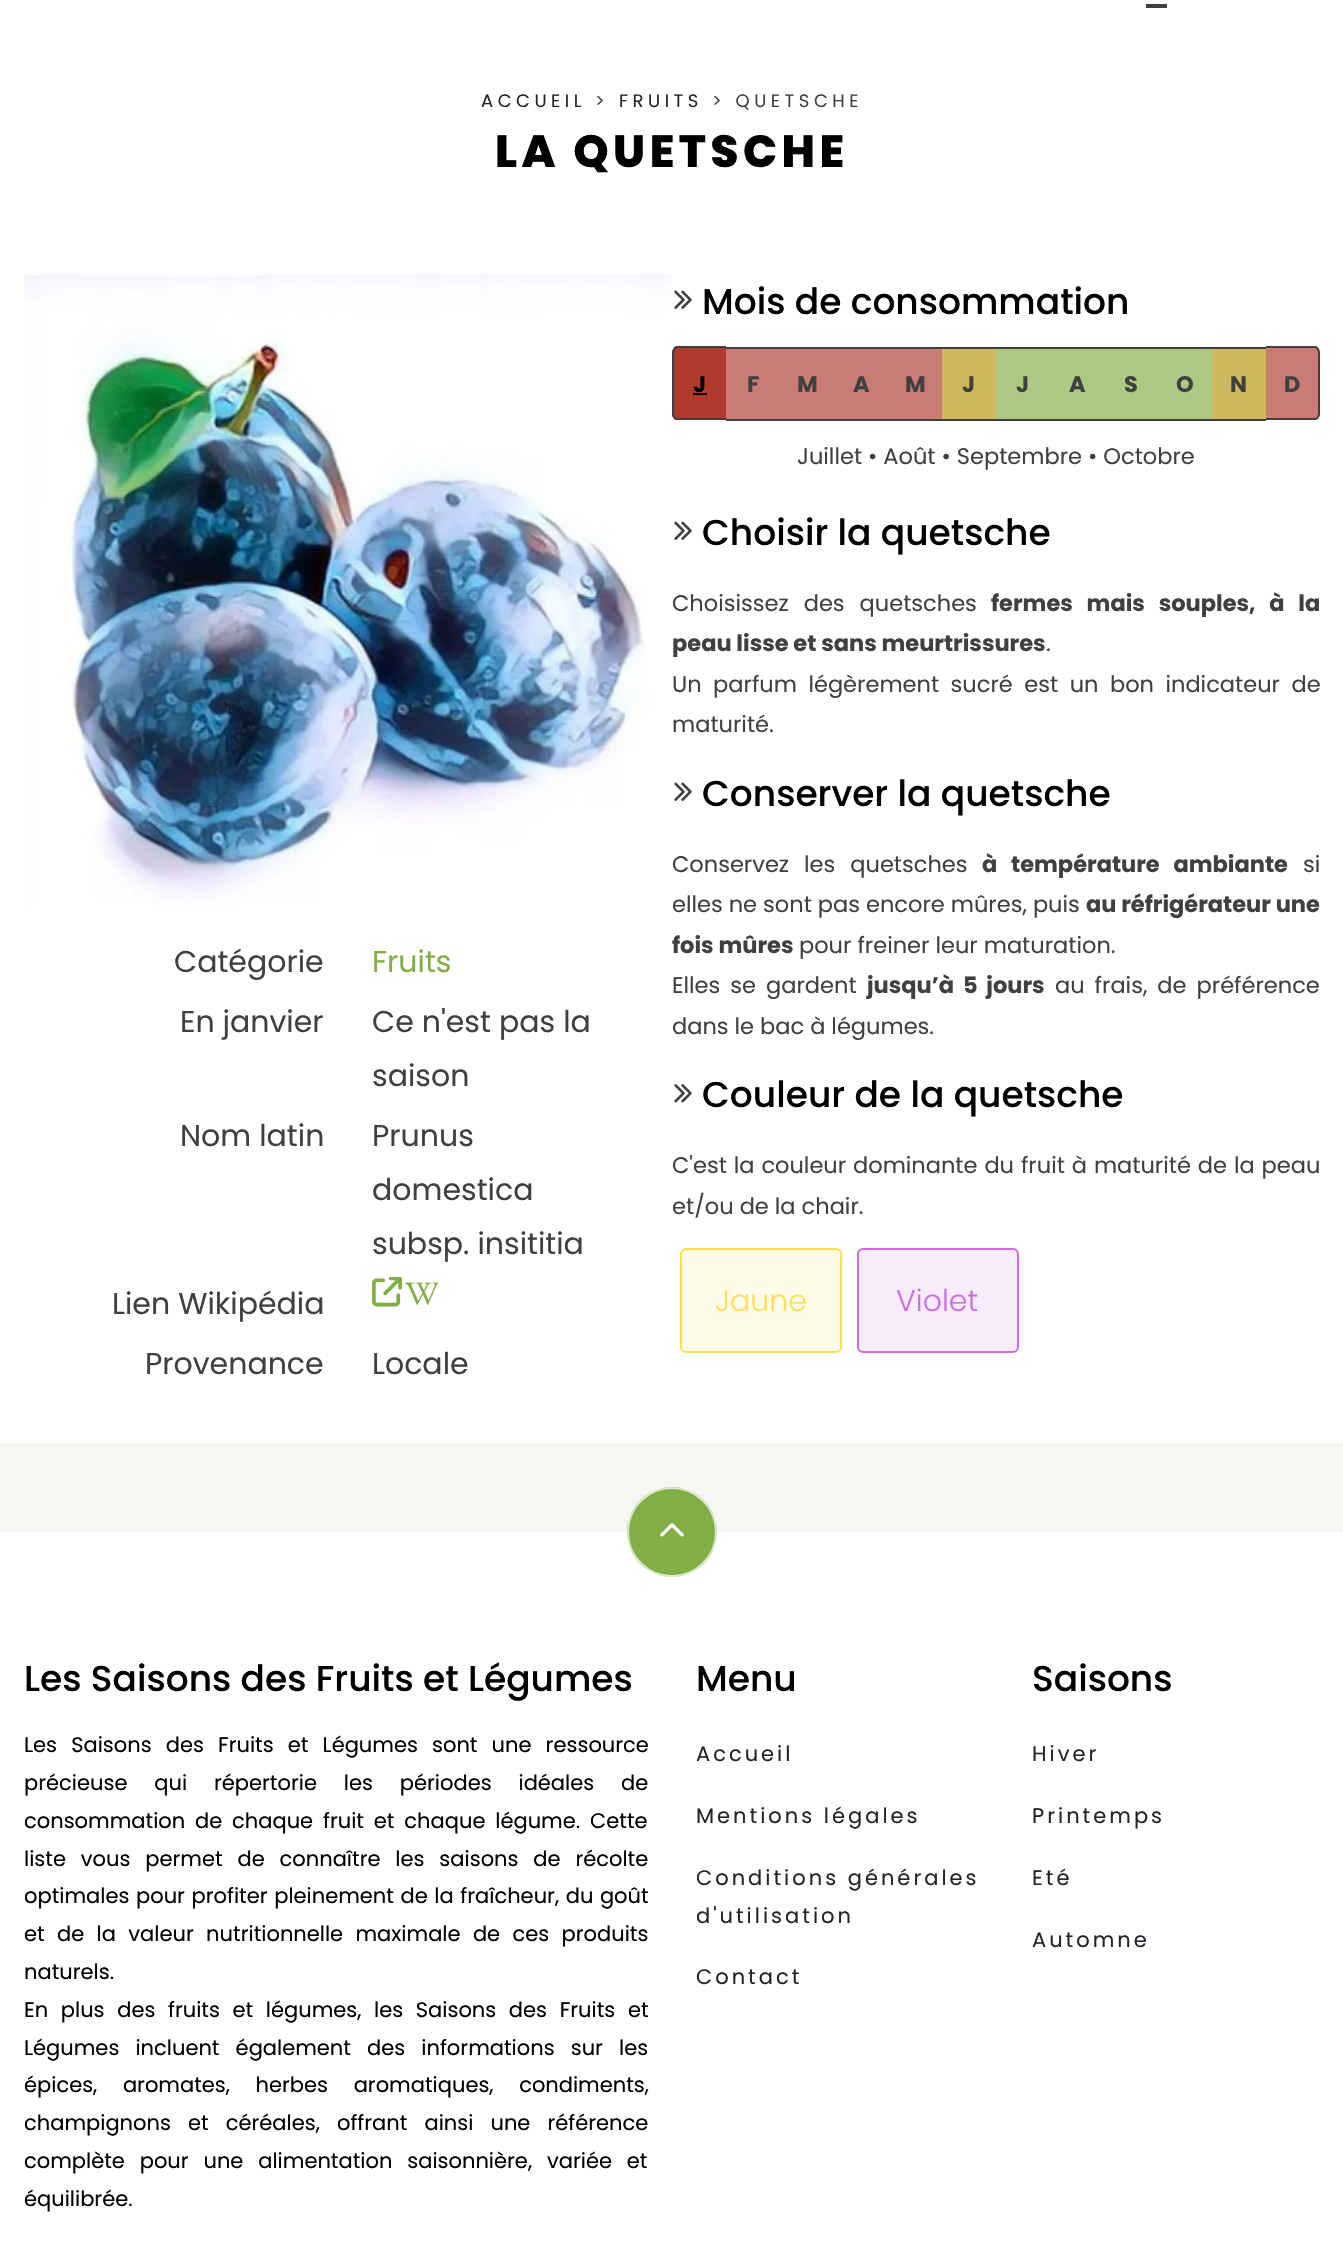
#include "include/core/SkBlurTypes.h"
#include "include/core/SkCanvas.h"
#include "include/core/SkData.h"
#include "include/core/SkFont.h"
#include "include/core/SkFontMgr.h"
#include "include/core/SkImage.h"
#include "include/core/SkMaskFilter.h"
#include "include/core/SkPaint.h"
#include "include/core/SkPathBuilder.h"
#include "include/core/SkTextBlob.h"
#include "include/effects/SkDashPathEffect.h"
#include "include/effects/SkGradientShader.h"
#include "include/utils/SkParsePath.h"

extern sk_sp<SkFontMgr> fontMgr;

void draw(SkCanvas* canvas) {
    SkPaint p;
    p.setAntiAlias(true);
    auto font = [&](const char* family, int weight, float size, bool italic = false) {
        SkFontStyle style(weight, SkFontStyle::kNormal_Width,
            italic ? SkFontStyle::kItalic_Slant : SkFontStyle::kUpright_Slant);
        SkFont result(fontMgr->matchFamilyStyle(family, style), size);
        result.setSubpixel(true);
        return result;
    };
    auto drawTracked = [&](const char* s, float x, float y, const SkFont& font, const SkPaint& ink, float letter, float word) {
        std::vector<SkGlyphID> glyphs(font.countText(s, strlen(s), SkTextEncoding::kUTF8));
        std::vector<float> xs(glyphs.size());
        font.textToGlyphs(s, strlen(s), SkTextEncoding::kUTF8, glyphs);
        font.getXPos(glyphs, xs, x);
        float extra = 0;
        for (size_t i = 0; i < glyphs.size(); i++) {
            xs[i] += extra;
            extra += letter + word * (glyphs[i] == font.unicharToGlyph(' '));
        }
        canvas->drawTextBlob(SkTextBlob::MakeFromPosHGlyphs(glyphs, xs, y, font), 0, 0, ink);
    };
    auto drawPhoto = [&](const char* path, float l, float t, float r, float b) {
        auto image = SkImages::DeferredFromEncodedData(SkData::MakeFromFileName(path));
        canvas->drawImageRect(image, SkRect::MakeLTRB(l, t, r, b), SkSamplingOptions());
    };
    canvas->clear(0xFFFFFFFF);
    p.setColor(0xFF404040);
    canvas->drawRect(SkRect::MakeLTRB(1146, 4, 1167, 8), p);
    auto font1 = font("Poppins", 400, 18);
    p.setColor(0xFF212529);
    drawTracked("ACCUEIL", 481, 107, font1, p, 4.5f, 0);
    p.setColor(0xFF404040);
    drawTracked(">", 595, 107, font1, p, 4.5f, 0);
    p.setColor(0xFF212529);
    drawTracked("FRUITS", 619, 107, font1, p, 4.5f, 0);
    p.setColor(0xFF404040);
    drawTracked("> QUETSCHE", 712, 107, font1, p, 4.5f, 0);
    auto font2 = font("Poppins", 800, 45);
    p.setColor(0xFF000000);
    drawTracked("LA QUETSCHE", 495, 167, font2, p, 4.5f, 0);
    drawPhoto("media/1.png", 24, 274, 672, 905);
    auto font3 = font("Poppins", 400, 30);
    p.setColor(0xFF404040);
    canvas->drawString("Catégorie", 174, 972, font3, p);
    p.setColor(0xFF82AE46);
    canvas->drawString("Fruits", 372, 972, font3, p);
    p.setColor(0xFF404040);
    {
        const struct { const char* s; float x, y; } items[] = {
            {"En janvier", 180, 1032},
            {"Ce n'est pas la", 372, 1032},
            {"saison", 372, 1086},
            {"Nom latin", 180, 1146},
            {"Prunus", 372, 1146},
            {"domestica", 372, 1200},
            {"subsp. insititia", 372, 1254},
            {"Lien Wikipédia", 112, 1314},
        };
        for (auto [s, x, y] : items) {
            canvas->drawString(s, x, y, font3, p);
        }
    }
    drawPhoto("media/2.png", 372, 1277, 402, 1307);
    drawPhoto("media/3.png", 405, 1282, 438, 1305);
    canvas->drawString("Provenance", 145, 1374, font3, p);
    canvas->drawString("Locale", 372, 1374, font3, p);
    drawPhoto("media/4.png", 674, 290, 692, 309);
    auto font4 = font("Poppins", 500, 36);
    p.setColor(0xFF000000);
    canvas->drawString("Mois de consommation", 702, 314, font4, p);
    p.setColor(0xFFB03A2E);
    canvas->drawPath(SkPathBuilder().moveTo(677, 346).lineTo(726, 346).lineTo(726, 420).lineTo(677, 420).cubicTo(674, 420, 672, 417, 672, 413).lineTo(672, 354).cubicTo(672, 350, 674, 346, 677, 346).close().detach(), p);
    p.setColor(0xFF404040);
    canvas->drawPath(SkPathBuilder(SkPathFillType::kEvenOdd).moveTo(677, 346).lineTo(726, 346).lineTo(726, 420).lineTo(677, 420).cubicTo(674, 420, 672, 417, 672, 413).lineTo(672, 354).cubicTo(672, 350, 674, 346, 677, 346).close().moveTo(677, 348).lineTo(726, 348).lineTo(726, 418).lineTo(677, 418).cubicTo(675, 418, 674, 416, 674, 413).lineTo(674, 354).cubicTo(674, 351, 675, 348, 677, 348).close().detach(), p);
    auto font5 = font("Poppins", 700, 22.5f);
    p.setColor(0xFF000000);
    canvas->drawString("J", 693, 392, font5, p);
    {
        const struct { float l, t, r, b; SkColor color; } items[] = {
            {693, 393, 707, 395, 0xFF000000},
            {726, 349, 942, 419, 0xFFCA7C74},
            {726, 347, 1266, 349, 0xFF404040},
            {726, 419, 1266, 421, 0xFF404040},
        };
        for (auto [l, t, r, b, color] : items) {
            p.setColor(color);
            canvas->drawRect(SkRect::MakeLTRB(l, t, r, b), p);
        }
    }
    {
        const struct { const char* s; float x, y; } items[] = {
            {"F", 747, 392},
            {"M", 797, 392},
            {"A", 853, 392},
            {"M", 905, 392},
        };
        for (auto [s, x, y] : items) {
            canvas->drawString(s, x, y, font5, p);
        }
    }
    p.setColor(0xFFCFB85C);
    canvas->drawRect(SkRect::MakeLTRB(942, 349, 996, 419), p);
    p.setColor(0xFF404040);
    canvas->drawString("J", 962, 392, font5, p);
    p.setColor(0xFFACC984);
    canvas->drawRect(SkRect::MakeLTRB(996, 349, 1212, 419), p);
    p.setColor(0xFF404040);
    {
        const struct { const char* s; float x, y; } items[] = {
            {"J", 1016, 392},
            {"A", 1069, 392},
            {"S", 1124, 392},
            {"O", 1176, 392},
        };
        for (auto [s, x, y] : items) {
            canvas->drawString(s, x, y, font5, p);
        }
    }
    p.setColor(0xFFCFB85C);
    canvas->drawRect(SkRect::MakeLTRB(1212, 349, 1266, 419), p);
    p.setColor(0xFF404040);
    canvas->drawString("N", 1230, 392, font5, p);
    p.setColor(0xFFCA7C74);
    canvas->drawPath(SkPathBuilder().moveTo(1266, 346).lineTo(1315, 346).cubicTo(1318, 346, 1320, 350, 1320, 354).lineTo(1320, 413).cubicTo(1320, 417, 1318, 420, 1315, 420).lineTo(1266, 420).close().detach(), p);
    p.setColor(0xFF404040);
    canvas->drawPath(SkPathBuilder(SkPathFillType::kEvenOdd).moveTo(1266, 346).lineTo(1315, 346).cubicTo(1318, 346, 1320, 350, 1320, 354).lineTo(1320, 413).cubicTo(1320, 417, 1318, 420, 1315, 420).lineTo(1266, 420).close().moveTo(1266, 348).lineTo(1315, 348).cubicTo(1317, 348, 1318, 351, 1318, 354).lineTo(1318, 413).cubicTo(1318, 416, 1317, 418, 1315, 418).lineTo(1266, 418).close().detach(), p);
    canvas->drawString("D", 1284, 392, font5, p);
    auto font6 = font("Poppins", 400, 22.5f);
    canvas->drawString("Juillet • Août • Septembre • Octobre", 797, 464, font6, p);
    drawPhoto("media/4.png", 674, 521, 692, 540);
    p.setColor(0xFF000000);
    canvas->drawString("Choisir la quetsche", 702, 545, font4, p);
    p.setColor(0xFF404040);
    drawTracked("Choisissez des quetsches", 672, 611, font6, p, 0, 9);
    drawTracked("fermes mais souples, à la", 991, 611, font5, p, 0, 9);
    canvas->drawString("peau lisse et sans meurtrissures", 672, 651, font5, p);
    canvas->drawString(".", 1046, 651, font6, p);
    drawTracked("Un parfum légèrement sucré est un bon indicateur de", 672, 692, font6, p, 0, 5.5f);
    canvas->drawString("maturité.", 672, 732, font6, p);
    drawPhoto("media/4.png", 674, 782, 692, 801);
    p.setColor(0xFF000000);
    canvas->drawString("Conserver la quetsche", 702, 806, font4, p);
    p.setColor(0xFF404040);
    drawTracked("Conservez les quetsches", 672, 872, font6, p, 0, 9);
    drawTracked("à température ambiante", 982, 872, font5, p, 0, 9);
    canvas->drawString("si", 1303, 872, font6, p);
    canvas->drawString("elles ne sont pas encore mûres, puis", 672, 912, font6, p);
    canvas->drawString("au réfrigérateur une", 1086, 912, font5, p);
    canvas->drawString("fois mûres", 672, 953, font5, p);
    canvas->drawString("pour freiner leur maturation.", 799, 953, font6, p);
    drawTracked("Elles se gardent", 672, 993, font6, p, 0, 4);
    drawTracked("jusqu’à 5 jours", 867, 993, font5, p, 0, 4);
    drawTracked("au frais, de préférence", 1055, 993, font6, p, 0, 4);
    canvas->drawString("dans le bac à légumes.", 672, 1034, font6, p);
    drawPhoto("media/5.png", 674, 1084, 692, 1103);
    p.setColor(0xFF000000);
    canvas->drawString("Couleur de la quetsche", 702, 1107, font4, p);
    p.setColor(0xFF404040);
    drawTracked("C'est la couleur dominante du fruit à maturité de la peau", 672, 1173, font6, p, 0, 0.9f);
    canvas->drawString("et/ou de la chair.", 672, 1214, font6, p);
    p.setColor(0xFFFFFBE9);
    canvas->drawRoundRect(SkRect::MakeLTRB(681, 1249, 841, 1352), 5, 5, p);
    p.setStyle(SkPaint::kStroke_Style);
    p.setStrokeWidth(2);
    p.setColor(0xFFFFDE59);
    canvas->drawRoundRect(SkRect::MakeLTRB(681, 1249, 841, 1352), 5, 5, p);
    auto font7 = font("Poppins", 300, 30);
    p.setStyle(SkPaint::kFill_Style);
    canvas->drawString("Jaune", 715, 1311, font7, p);
    p.setColor(0xFFF8EBFC);
    canvas->drawRoundRect(SkRect::MakeLTRB(858, 1249, 1018, 1352), 5, 5, p);
    p.setStyle(SkPaint::kStroke_Style);
    p.setColor(0xFFCB6CE6);
    canvas->drawRoundRect(SkRect::MakeLTRB(858, 1249, 1018, 1352), 5, 5, p);
    p.setStyle(SkPaint::kFill_Style);
    canvas->drawString("Violet", 896, 1311, font7, p);
    p.setColor(0xFFF7F6F2);
    canvas->drawRect(SkRect::MakeLTRB(0, 1442, 1343, 1532), p);
    p.setColor(0xFF82AE46);
    canvas->drawCircle(672, 1532, 45, p);
    drawPhoto("media/6.png", 660, 1523, 684, 1537);
    p.setStyle(SkPaint::kStroke_Style);
    p.setColor(0xB3FFFFFF);
    canvas->drawCircle(672, 1532, 44, p);
    p.setStyle(SkPaint::kFill_Style);
    p.setColor(0xFF000000);
    canvas->drawString("Les Saisons des Fruits et Légumes", 24, 1691, font4, p);
    auto font8 = font("Poppins", 400, 21);
    drawTracked("Les Saisons des Fruits et Légumes sont une ressource", 24, 1752, font8, p, 0, 8.5f);
    drawTracked("précieuse qui répertorie les périodes idéales de", 24, 1790, font8, p, 0, 21.25f);
    drawTracked("consommation de chaque fruit et chaque légume. Cette", 24, 1828, font8, p, 0, 4.25f);
    drawTracked("liste vous permet de connaître les saisons de récolte", 24, 1866, font8, p, 0, 9.25f);
    drawTracked("optimales pour profiter pleinement de la fraîcheur, du goût", 24, 1903, font8, p, 0, 1);
    drawTracked("et de la valeur nutritionnelle maximale de ces produits", 24, 1941, font8, p, 0, 6.75f);
    canvas->drawString("naturels.", 24, 1979, font8, p);
    drawTracked("En plus des fruits et légumes, les Saisons des Fruits et", 24, 2017, font8, p, 0, 7);
    drawTracked("Légumes incluent également des informations sur les", 24, 2055, font8, p, 0, 10.5f);
    drawTracked("épices, aromates, herbes aromatiques, condiments,", 24, 2092, font8, p, 0, 20);
    drawTracked("champignons et céréales, offrant ainsi une référence", 24, 2130, font8, p, 0, 11.5f);
    drawTracked("complète pour une alimentation saisonnière, variée et", 24, 2168, font8, p, 0, 9.25f);
    canvas->drawString("équilibrée.", 24, 2206, font8, p);
    canvas->drawString("Menu", 696, 1691, font4, p);
    p.setColor(0xFF212529);
    {
        const struct { const char* s; float x, y; } items[] = {
            {"Accueil", 696, 1761},
            {"Mentions légales", 696, 1823},
            {"Conditions générales", 696, 1885},
            {"d'utilisation", 696, 1923},
            {"Contact", 696, 1984},
        };
        for (auto [s, x, y] : items) {
            drawTracked(s, x, y, font8, p, 3, 0);
        }
    }
    p.setColor(0xFF000000);
    canvas->drawString("Saisons", 1032, 1691, font4, p);
    p.setColor(0xFF212529);
    {
        const struct { const char* s; float x, y; } items[] = {
            {"Hiver", 1032, 1761},
            {"Printemps", 1032, 1823},
            {"Eté", 1032, 1885},
            {"Automne", 1032, 1947},
        };
        for (auto [s, x, y] : items) {
            drawTracked(s, x, y, font8, p, 3, 0);
        }
    }
}
